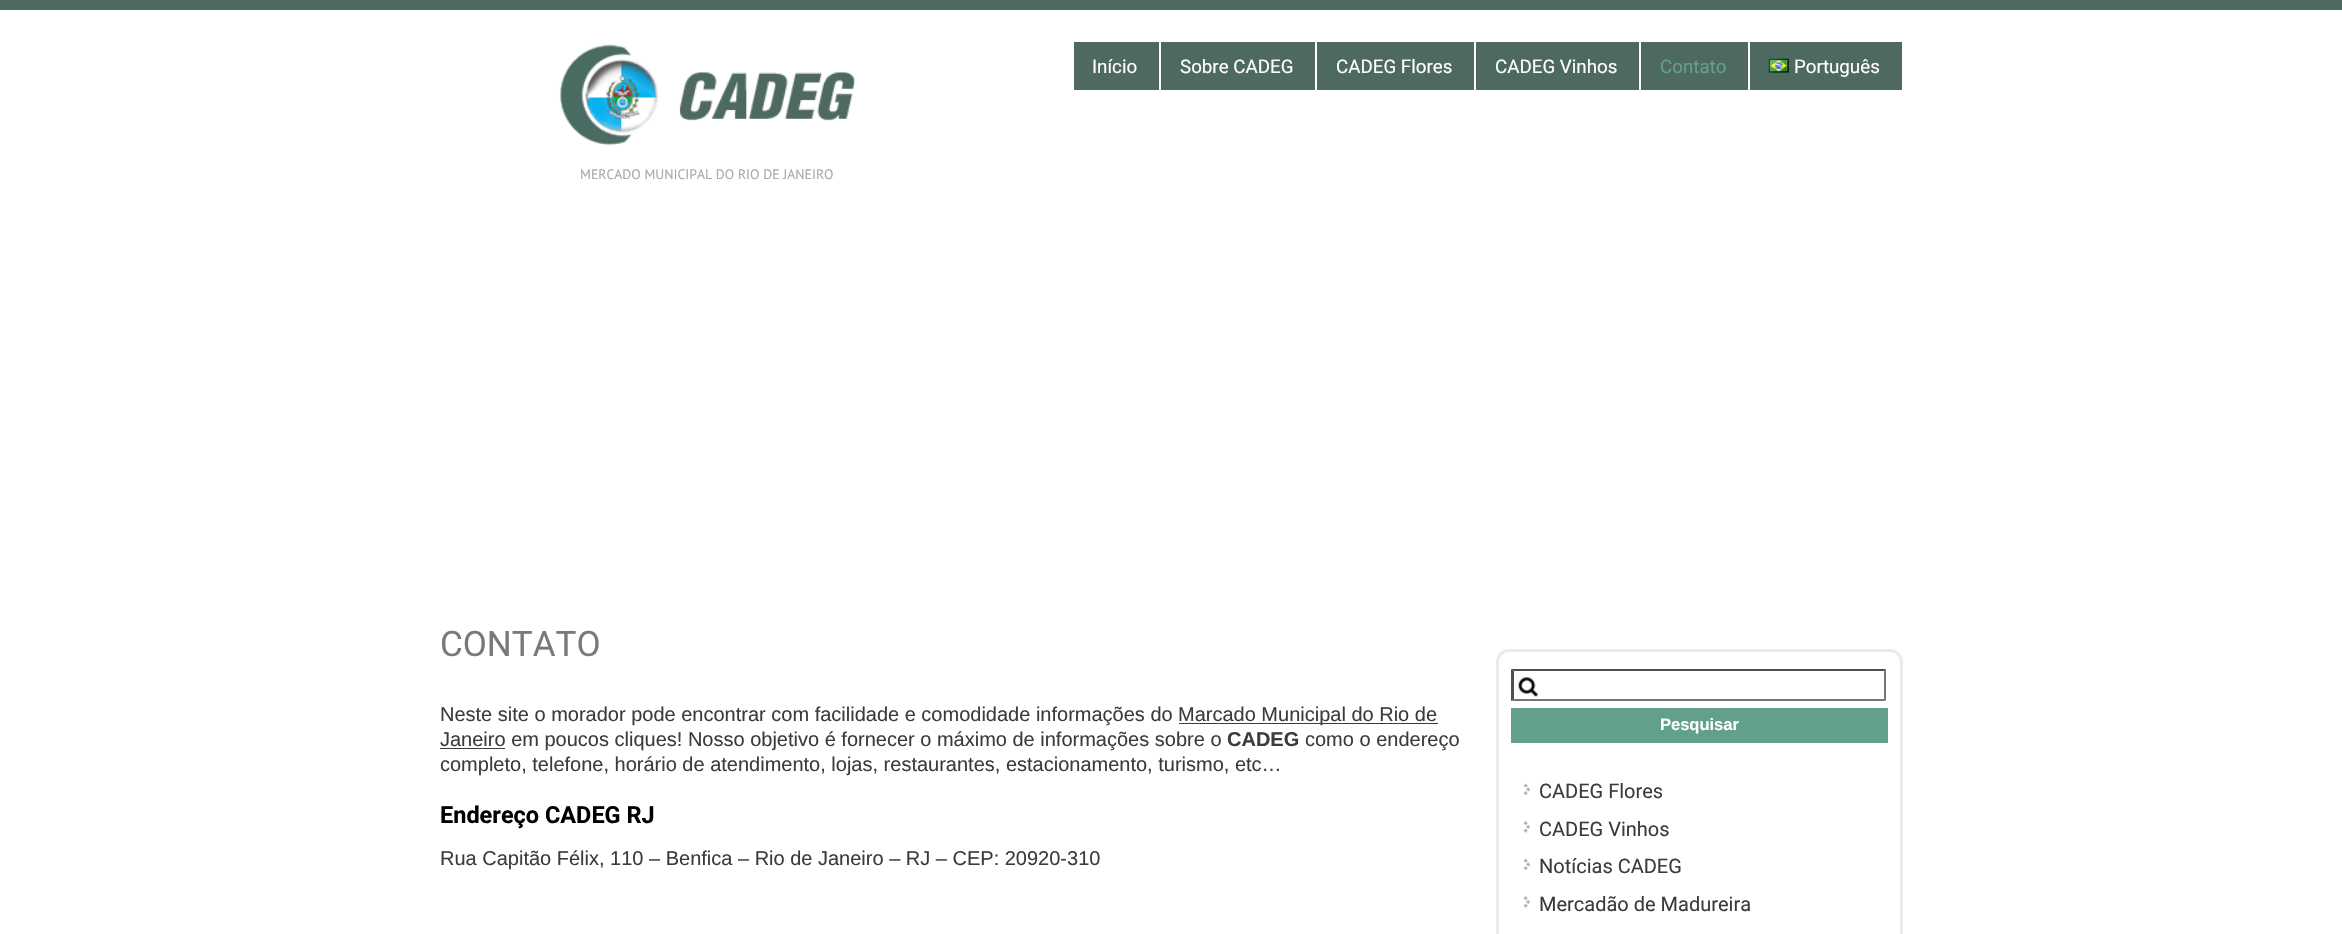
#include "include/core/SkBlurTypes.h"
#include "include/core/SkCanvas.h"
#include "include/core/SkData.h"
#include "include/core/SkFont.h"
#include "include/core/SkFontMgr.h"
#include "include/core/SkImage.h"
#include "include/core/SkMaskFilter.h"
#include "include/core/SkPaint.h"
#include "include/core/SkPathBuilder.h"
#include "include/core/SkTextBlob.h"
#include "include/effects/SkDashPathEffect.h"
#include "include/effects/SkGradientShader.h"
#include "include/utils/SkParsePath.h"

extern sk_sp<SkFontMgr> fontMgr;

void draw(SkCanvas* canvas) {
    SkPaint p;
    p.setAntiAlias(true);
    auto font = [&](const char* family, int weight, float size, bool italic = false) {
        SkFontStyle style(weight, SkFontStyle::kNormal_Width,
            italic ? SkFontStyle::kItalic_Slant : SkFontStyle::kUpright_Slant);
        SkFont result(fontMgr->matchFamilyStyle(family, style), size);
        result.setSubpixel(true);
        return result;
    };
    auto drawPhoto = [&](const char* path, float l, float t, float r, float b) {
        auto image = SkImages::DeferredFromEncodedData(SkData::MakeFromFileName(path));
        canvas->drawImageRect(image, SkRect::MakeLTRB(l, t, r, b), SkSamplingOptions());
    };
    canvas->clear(0xFFFFFFFF);
    p.setColor(0xFF4E6960);
    canvas->drawRect(SkRect::MakeLTRB(0, 0, 2342, 10), p);
    canvas->drawRect(SkRect::MakeLTRB(1074, 42, 1159, 90), p);
    auto font1 = font("Roboto", 400, 18.75f);
    p.setColor(0xFFFFFFFF);
    canvas->drawString("Início", 1092, 73, font1, p);
    p.setColor(0xFF4E6960);
    canvas->drawRect(SkRect::MakeLTRB(1161, 42, 1315, 90), p);
    p.setColor(0xFFFFFFFF);
    canvas->drawString("Sobre CADEG", 1180, 73, font1, p);
    p.setColor(0xFF4E6960);
    canvas->drawRect(SkRect::MakeLTRB(1317, 42, 1474, 90), p);
    p.setColor(0xFFFFFFFF);
    canvas->drawString("CADEG Flores", 1336, 73, font1, p);
    p.setColor(0xFF4E6960);
    canvas->drawRect(SkRect::MakeLTRB(1476, 42, 1639, 90), p);
    p.setColor(0xFFFFFFFF);
    canvas->drawString("CADEG Vinhos", 1495, 73, font1, p);
    p.setColor(0xFF4E6960);
    canvas->drawRect(SkRect::MakeLTRB(1641, 42, 1748, 90), p);
    p.setColor(0xFF63A08C);
    canvas->drawString("Contato", 1660, 73, font1, p);
    p.setColor(0xFF4E6960);
    canvas->drawRect(SkRect::MakeLTRB(1750, 42, 1902, 90), p);
    drawPhoto("media/1.png", 1768, 58, 1789, 73);
    p.setColor(0xFFFFFFFF);
    canvas->drawString("Português", 1794, 73, font1, p);
    drawPhoto("media/2.png", 559, 44, 856, 146);
    auto font2 = font("PT Sans", 400, 13.75f);
    p.setColor(0xFFA9A9A9);
    canvas->drawString("MERCADO MUNICIPAL DO RIO DE JANEIRO", 580, 179, font2, p);
    auto font3 = font("Roboto", 400, 35);
    p.setColor(0xFF797979);
    canvas->drawString("CONTATO", 440, 656, font3, p);
    auto font4 = font("Liberation Sans", 400, 20);
    p.setColor(0xFF3C3C3C);
    canvas->drawString("Neste site o morador pode encontrar com facilidade e comodidade informações do", 440, 721, font4, p);
    canvas->drawRect(SkRect::MakeLTRB(1179, 723, 1438, 724), p);
    canvas->drawString("Marcado Municipal do Rio de", 1178, 721, font4, p);
    canvas->drawRect(SkRect::MakeLTRB(440, 748, 505, 749), p);
    canvas->drawString("Janeiro em poucos cliques! Nosso objetivo é fornecer o máximo de informações sobre o", 440, 746, font4, p);
    auto font5 = font("Liberation Sans", 700, 20);
    canvas->drawString("CADEG", 1227, 746, font5, p);
    canvas->drawString("como o endereço", 1305, 746, font4, p);
    canvas->drawString("completo, telefone, horário de atendimento, lojas, restaurantes, estacionamento, turismo, etc…", 440, 771, font4, p);
    auto font6 = font("Roboto", 700, 23.5f);
    p.setColor(0xFF000000);
    canvas->drawString("Endereço CADEG RJ", 440, 823, font6, p);
    p.setColor(0xFF3C3C3C);
    canvas->drawString("Rua Capitão Félix, 110 – Benfica – Rio de Janeiro – RJ – CEP: 20920-310", 440, 865, font4, p);
    p.setStyle(SkPaint::kStroke_Style);
    p.setStrokeWidth(3);
    p.setColor(0xFFEBEBEB);
    canvas->drawRoundRect(SkRect::MakeLTRB(1497.5f, 650.5f, 1901.5f, 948.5f), 11.5f, 11.5f, p);
    drawPhoto("media/3.png", 1518, 677, 1538, 697);
    p.setStyle(SkPaint::kFill_Style);
    p.setColor(0xFF4F4F4F);
    canvas->drawPath(SkPathBuilder().moveTo(1511, 669).lineTo(1886, 669).lineTo(1884, 671).lineTo(1514, 671).close().detach(), p);
    p.setColor(0xFF767676);
    canvas->drawPath(SkPathBuilder().moveTo(1886, 669).lineTo(1886, 701).lineTo(1884, 699).lineTo(1884, 671).close().detach(), p);
    canvas->drawPath(SkPathBuilder().moveTo(1886, 701).lineTo(1511, 701).lineTo(1514, 699).lineTo(1884, 699).close().detach(), p);
    p.setColor(0xFF4F4F4F);
    canvas->drawPath(SkPathBuilder().moveTo(1511, 701).lineTo(1511, 669).lineTo(1514, 671).lineTo(1514, 699).close().detach(), p);
    p.setColor(0xFF63A08C);
    canvas->drawRect(SkRect::MakeLTRB(1511, 708, 1888, 743), p);
    auto font7 = font("Liberation Sans", 700, 16.5f);
    p.setColor(0xFFFFFFFF);
    canvas->drawString("Pesquisar", 1660, 730, font7, p);
    drawPhoto("media/4.png", 1523, 783, 1530, 795);
    auto font8 = font("Roboto", 400, 20);
    p.setColor(0xFF3C3C3C);
    canvas->drawString("CADEG Flores", 1539, 798, font8, p);
    drawPhoto("media/5.png", 1523, 821, 1530, 833);
    canvas->drawString("CADEG Vinhos", 1539, 836, font8, p);
    drawPhoto("media/4.png", 1523, 858, 1530, 870);
    canvas->drawString("Notícias CADEG", 1539, 873, font8, p);
    drawPhoto("media/6.png", 1523, 896, 1530, 908);
    canvas->drawString("Mercadão de Madureira", 1539, 911, font8, p);
}
